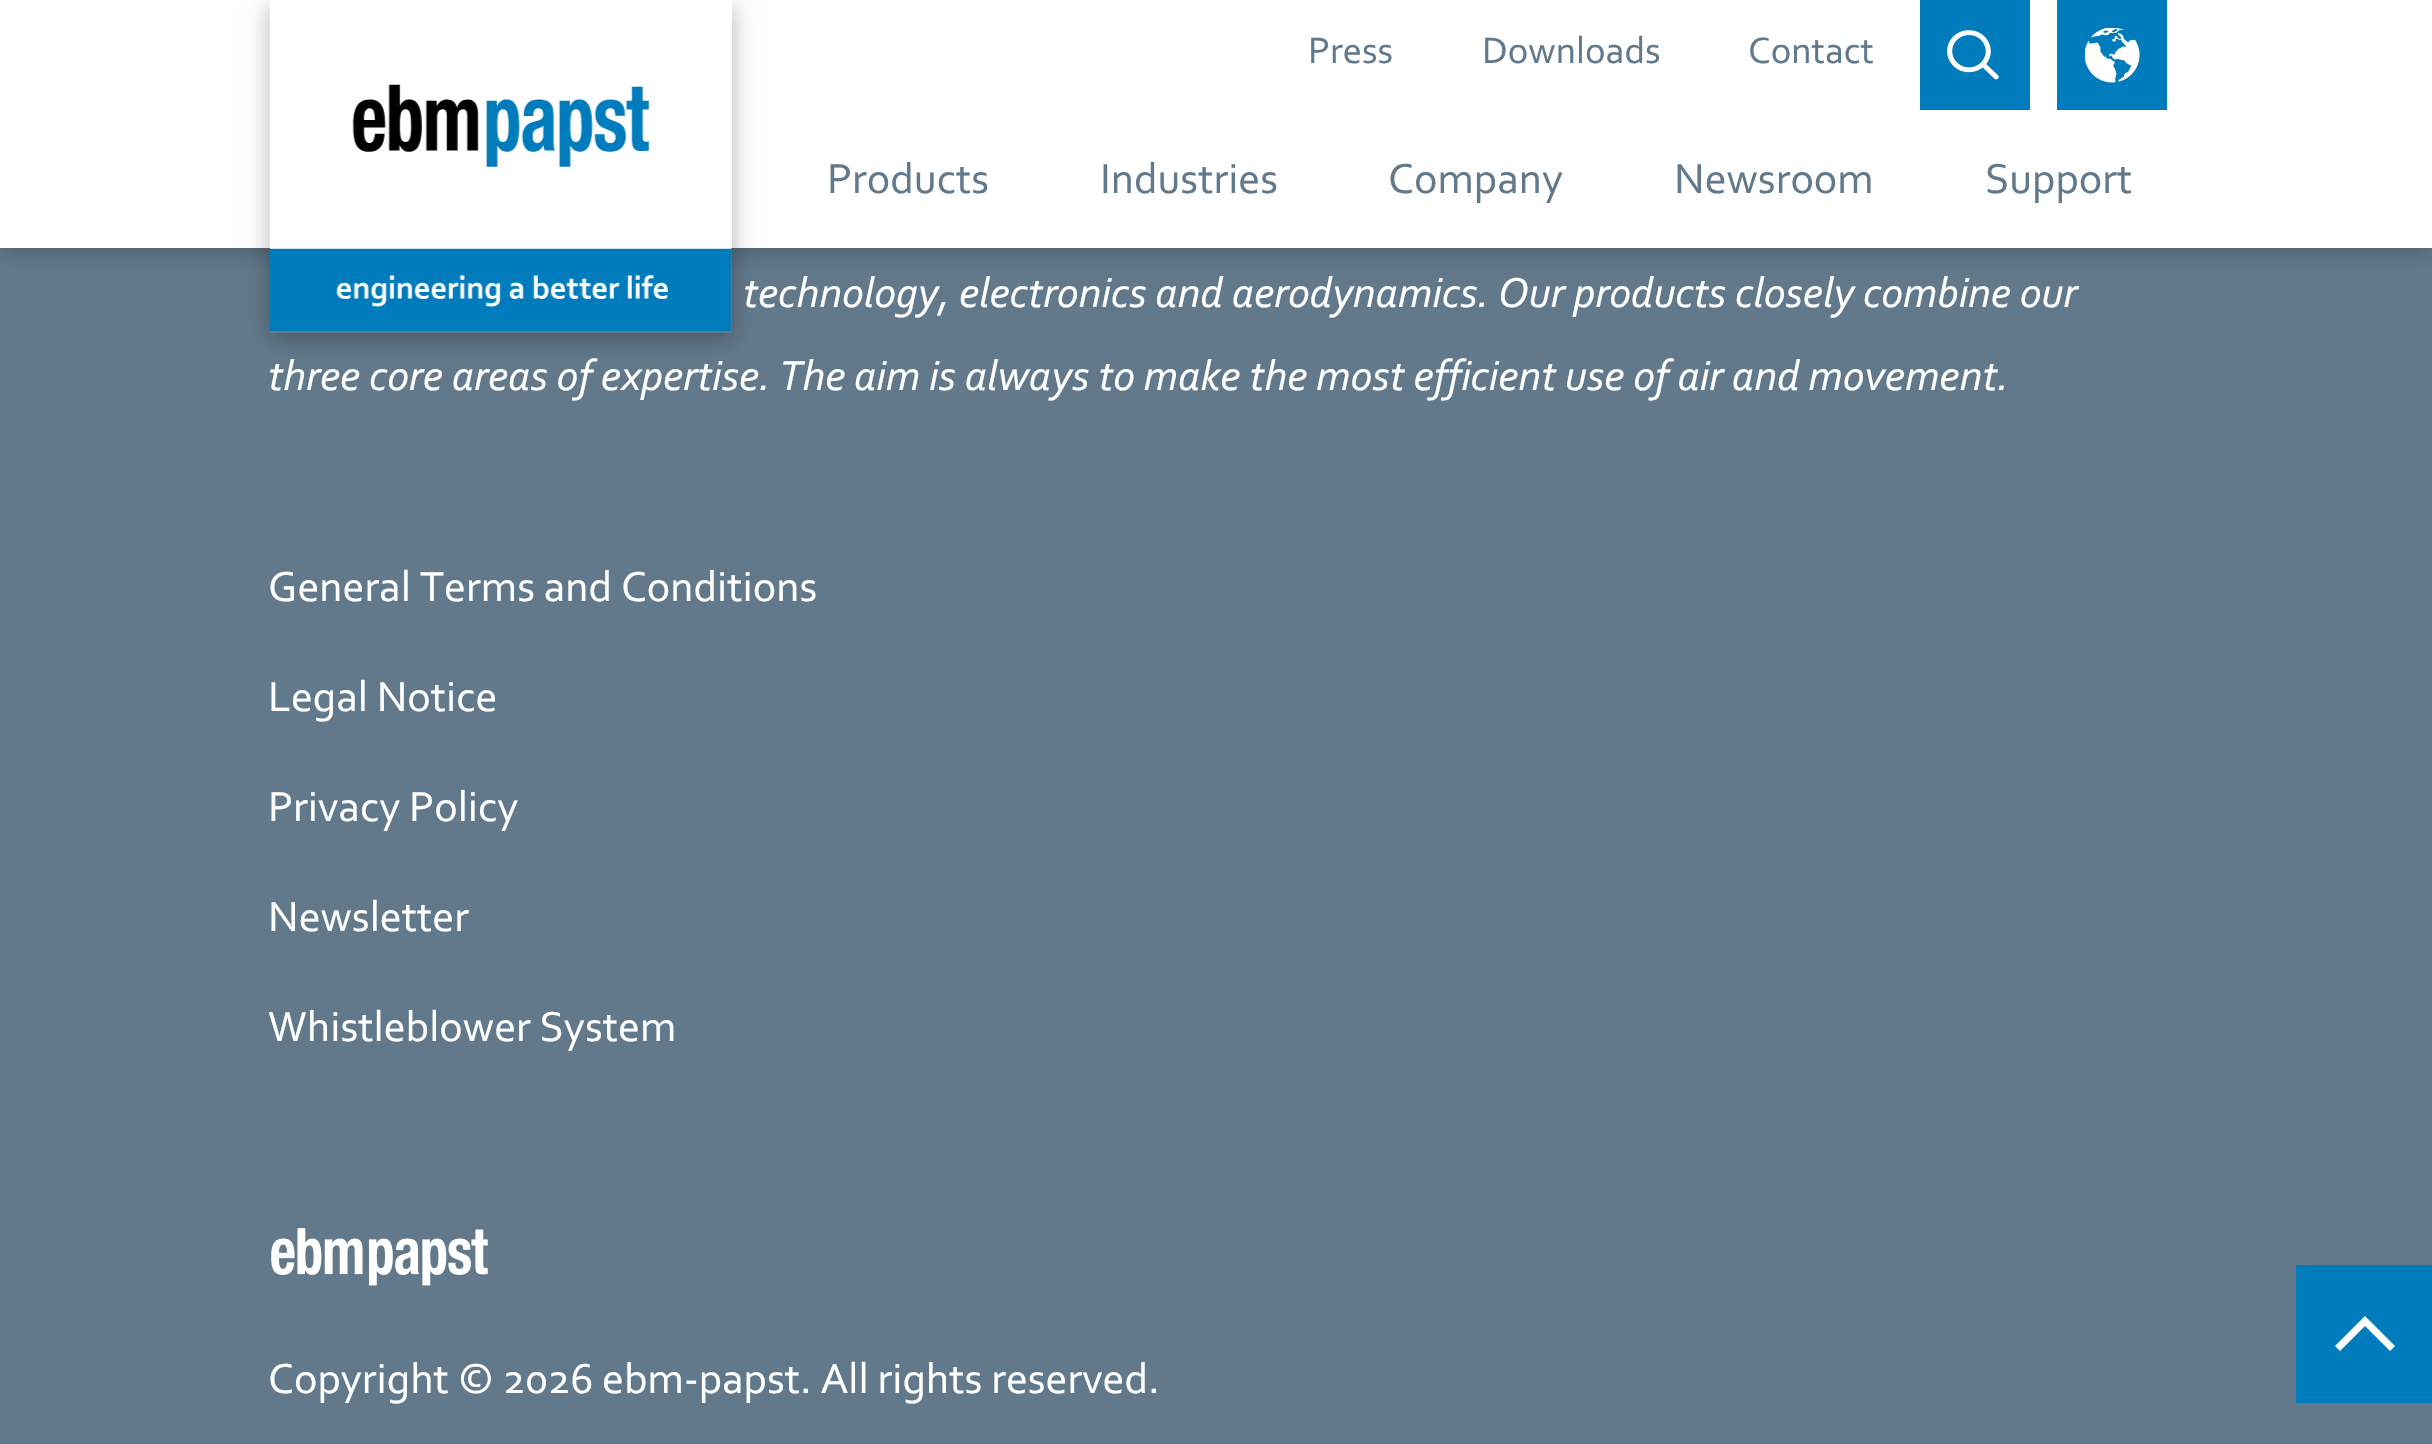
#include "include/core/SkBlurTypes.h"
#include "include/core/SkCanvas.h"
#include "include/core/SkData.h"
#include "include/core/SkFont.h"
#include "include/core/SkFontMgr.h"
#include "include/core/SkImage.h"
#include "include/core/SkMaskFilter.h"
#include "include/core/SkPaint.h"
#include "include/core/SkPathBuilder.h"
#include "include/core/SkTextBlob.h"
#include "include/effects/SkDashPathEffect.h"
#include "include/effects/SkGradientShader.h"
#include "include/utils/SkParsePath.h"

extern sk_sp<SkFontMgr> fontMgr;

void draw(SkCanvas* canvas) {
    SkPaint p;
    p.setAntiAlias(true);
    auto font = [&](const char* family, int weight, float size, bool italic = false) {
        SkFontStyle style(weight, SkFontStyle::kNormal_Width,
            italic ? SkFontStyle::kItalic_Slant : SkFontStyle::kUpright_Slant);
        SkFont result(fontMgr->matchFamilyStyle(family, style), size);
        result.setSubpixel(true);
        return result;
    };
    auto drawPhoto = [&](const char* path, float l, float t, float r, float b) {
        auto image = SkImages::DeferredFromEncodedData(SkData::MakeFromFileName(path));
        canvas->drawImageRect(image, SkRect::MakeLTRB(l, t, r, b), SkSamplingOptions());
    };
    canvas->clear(0xFF62798B);
    p.setColor(0x33000000);
    p.setMaskFilter(SkMaskFilter::MakeBlur(kNormal_SkBlurStyle, 11));
    canvas->drawRect(SkRect::MakeLTRB(0, 6, 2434, 253), p);
    p.setMaskFilter(nullptr);
    p.setColor(0xFFFFFFFF);
    canvas->drawRect(SkRect::MakeLTRB(0, 0, 2432, 248), p);
    canvas->save();
    canvas->clipPath(SkPathBuilder(SkPathFillType::kEvenOdd).moveTo(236, 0).lineTo(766, 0).lineTo(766, 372).lineTo(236, 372).close().moveTo(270, 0).lineTo(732, 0).lineTo(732, 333).lineTo(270, 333).close().detach(), true);
    p.setColor(0x4D000000);
    p.setMaskFilter(SkMaskFilter::MakeBlur(kNormal_SkBlurStyle, 11));
    canvas->drawRect(SkRect::MakeLTRB(270, 6, 732, 338), p);
    p.setMaskFilter(nullptr);
    canvas->restore();
    drawPhoto("media/1.png", 269, 5, 732, 332);
    auto font1 = font("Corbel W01", 400, 38.5f);
    p.setColor(0xFF62798B);
    {
        const struct { const char* s; float x, y; } items[] = {
            {"Press", 1308, 63},
            {"Downloads", 1482, 63},
            {"Contact", 1748, 63},
        };
        for (auto [s, x, y] : items) {
            canvas->drawString(s, x, y, font1, p);
        }
    }
    p.setColor(0xFF007CBC);
    canvas->drawRect(SkRect::MakeLTRB(1920, 0, 2030, 110), p);
    drawPhoto("media/2.png", 1947, 30, 1999, 80);
    canvas->drawRect(SkRect::MakeLTRB(2057, 0, 2167, 110), p);
    drawPhoto("media/3.png", 2085, 28, 2140, 83);
    auto font2 = font("Corbel W01", 400, 44);
    p.setColor(0xFF62798B);
    {
        const struct { const char* s; float x, y; } items[] = {
            {"Products", 827, 193},
            {"Industries", 1100, 193},
            {"Company", 1388, 193},
            {"Newsroom", 1674, 193},
            {"Support", 1985, 193},
        };
        for (auto [s, x, y] : items) {
            canvas->drawString(s, x, y, font2, p);
        }
    }
    auto font3 = font("Corbel W01", 400, 44, true);
    p.setColor(0xFFFFFFFF);
    canvas->drawString("technology, electronics and aerodynamics. Our products closely combine our", 743, 307, font3, p);
    canvas->drawString("three core areas of expertise. The aim is always to make the most efficient use of air and movement.", 268, 390, font3, p);
    {
        const struct { const char* s; float x, y; } items[] = {
            {"General Terms and Conditions", 268, 601},
            {"Legal Notice", 268, 711},
            {"Privacy Policy", 268, 821},
            {"Newsletter", 268, 931},
            {"Whistleblower System", 268, 1041},
        };
        for (auto [s, x, y] : items) {
            canvas->drawString(s, x, y, font2, p);
        }
    }
    drawPhoto("media/4.png", 271, 1228, 488, 1286);
    canvas->drawString("Copyright © 2026 ebm-papst. All rights reserved.", 268, 1393, font2, p);
    p.setColor(0xFF007CBC);
    canvas->drawRect(SkRect::MakeLTRB(2296, 1265, 2432, 1403), p);
    p.setColor(0xFFFFFFFF);
    canvas->drawPath(SkPathBuilder().moveTo(2365, 1316).lineTo(2335, 1346).lineTo(2340, 1351).lineTo(2365, 1326).lineTo(2390, 1351).lineTo(2395, 1346).close().detach(), p);
}
